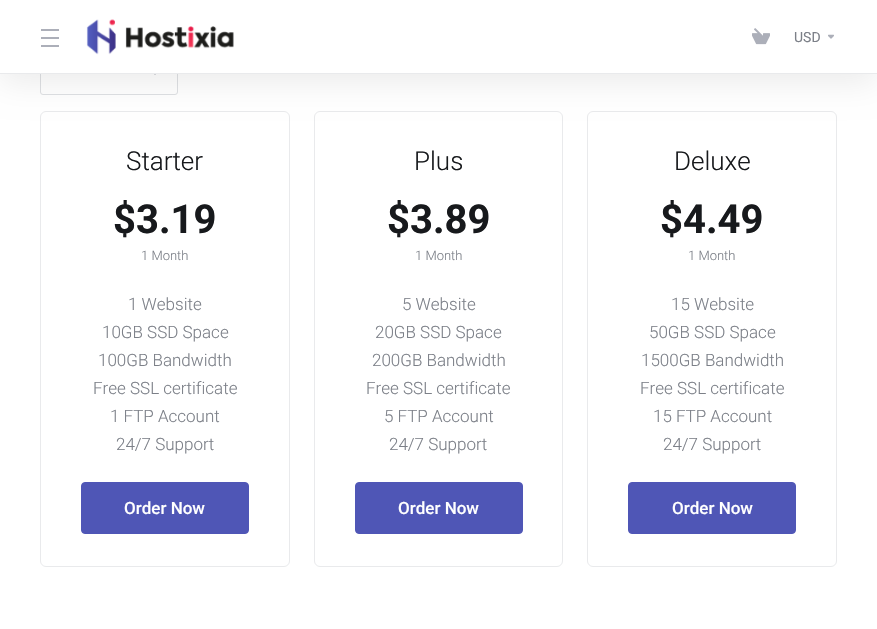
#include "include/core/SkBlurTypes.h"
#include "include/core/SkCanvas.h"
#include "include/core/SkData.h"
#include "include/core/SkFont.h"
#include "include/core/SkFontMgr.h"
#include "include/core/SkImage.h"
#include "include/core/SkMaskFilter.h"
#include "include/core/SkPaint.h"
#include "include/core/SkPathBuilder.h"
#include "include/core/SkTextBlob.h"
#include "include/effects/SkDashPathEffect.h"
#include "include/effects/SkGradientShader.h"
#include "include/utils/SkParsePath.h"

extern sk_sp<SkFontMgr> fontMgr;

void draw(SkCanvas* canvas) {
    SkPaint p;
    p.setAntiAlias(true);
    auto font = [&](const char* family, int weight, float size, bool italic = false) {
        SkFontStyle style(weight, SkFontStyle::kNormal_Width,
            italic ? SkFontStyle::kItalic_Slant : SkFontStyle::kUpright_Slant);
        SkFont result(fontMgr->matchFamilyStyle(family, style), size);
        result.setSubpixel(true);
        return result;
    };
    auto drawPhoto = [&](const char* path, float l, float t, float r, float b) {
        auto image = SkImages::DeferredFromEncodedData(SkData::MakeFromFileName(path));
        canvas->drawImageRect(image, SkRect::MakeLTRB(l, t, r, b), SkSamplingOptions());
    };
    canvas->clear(0xFFFFFFFF);
    p.setStyle(SkPaint::kStroke_Style);
    p.setStrokeWidth(1);
    p.setColor(0xFFDEE0E3);
    canvas->drawRoundRect(SkRect::MakeLTRB(40.5f, 51.5f, 177.5f, 94.5f), 2.5f, 2.5f, p);
    drawPhoto("media/4.png", 154, 74, 156, 75);
    p.setColor(0xFFE9EAEC);
    canvas->drawRoundRect(SkRect::MakeLTRB(40.5f, 111.5f, 289.5f, 566.5f), 5.5f, 5.5f, p);
    canvas->drawRoundRect(SkRect::MakeLTRB(314.5f, 111.5f, 562.5f, 566.5f), 5.5f, 5.5f, p);
    canvas->drawRoundRect(SkRect::MakeLTRB(587.5f, 111.5f, 836.5f, 566.5f), 5.5f, 5.5f, p);
    p.setStyle(SkPaint::kFill_Style);
    p.setColor(0x14000000);
    p.setMaskFilter(SkMaskFilter::MakeBlur(kNormal_SkBlurStyle, 16));
    canvas->drawRect(SkRect::MakeLTRB(0, 8, 877, 82), p);
    p.setMaskFilter(nullptr);
    {
        const struct { float l, t, r, b; SkColor color; } items[] = {
            {0, 0, 877, 73, 0xFFFFFFFF},
            {0, 73, 877, 74, 0xFFE9EAEC},
            {41, 29, 59, 31, 0xFFACAFB9},
            {41, 37, 59, 39, 0xFFACAFB9},
            {41, 45, 59, 47, 0xFFACAFB9},
        };
        for (auto [l, t, r, b, color] : items) {
            p.setColor(color);
            canvas->drawRect(SkRect::MakeLTRB(l, t, r, b), p);
        }
    }
    drawPhoto("media/1.png", 86, 19, 234, 55);
    drawPhoto("media/2.png", 752, 28, 770, 45);
    auto font1 = font("Roboto", 400, 14);
    p.setColor(0xFF7C8088);
    canvas->drawString("USD", 794, 42, font1, p);
    drawPhoto("media/3.png", 828, 34, 834, 39);
    auto font2 = font("Roboto", 300, 26);
    p.setColor(0xFF17191C);
    canvas->drawString("Starter", 126, 170, font2, p);
    auto font3 = font("Roboto", 700, 40);
    canvas->drawString("$3.19", 113, 233, font3, p);
    auto font4 = font("Roboto", 300, 13);
    p.setColor(0xFF7C8088);
    canvas->drawString("1 Month", 141, 260, font4, p);
    auto font5 = font("Roboto", 300, 17);
    {
        const struct { const char* s; float x, y; } items[] = {
            {"1 Website", 128, 310},
            {"10GB SSD Space", 102, 338},
            {"100GB Bandwidth", 98, 366},
            {"Free SSL certificate", 93, 394},
            {"1 FTP Account", 110, 422},
            {"24/7 Support", 116, 450},
        };
        for (auto [s, x, y] : items) {
            canvas->drawString(s, x, y, font5, p);
        }
    }
    p.setColor(0xFF4F56B6);
    canvas->drawRoundRect(SkRect::MakeLTRB(81.5f, 482.5f, 248.5f, 533.5f), 3.5f, 3.5f, p);
    p.setStyle(SkPaint::kStroke_Style);
    canvas->drawRoundRect(SkRect::MakeLTRB(81.5f, 482.5f, 248.5f, 533.5f), 3.5f, 3.5f, p);
    auto font6 = font("Roboto", 500, 17);
    p.setStyle(SkPaint::kFill_Style);
    p.setColor(0xFFFFFFFF);
    canvas->drawString("Order Now", 124, 514, font6, p);
    p.setColor(0xFF17191C);
    canvas->drawString("Plus", 414, 170, font2, p);
    canvas->drawString("$3.89", 387, 233, font3, p);
    p.setColor(0xFF7C8088);
    canvas->drawString("1 Month", 415, 260, font4, p);
    {
        const struct { const char* s; float x, y; } items[] = {
            {"5 Website", 402, 310},
            {"20GB SSD Space", 375, 338},
            {"200GB Bandwidth", 372, 366},
            {"Free SSL certificate", 366, 394},
            {"5 FTP Account", 384, 422},
            {"24/7 Support", 389, 450},
        };
        for (auto [s, x, y] : items) {
            canvas->drawString(s, x, y, font5, p);
        }
    }
    p.setColor(0xFF4F56B6);
    canvas->drawRoundRect(SkRect::MakeLTRB(355.5f, 482.5f, 522.5f, 533.5f), 3.5f, 3.5f, p);
    p.setStyle(SkPaint::kStroke_Style);
    canvas->drawRoundRect(SkRect::MakeLTRB(355.5f, 482.5f, 522.5f, 533.5f), 3.5f, 3.5f, p);
    p.setStyle(SkPaint::kFill_Style);
    p.setColor(0xFFFFFFFF);
    canvas->drawString("Order Now", 398, 514, font6, p);
    p.setColor(0xFF17191C);
    canvas->drawString("Deluxe", 674, 170, font2, p);
    canvas->drawString("$4.49", 660, 233, font3, p);
    p.setColor(0xFF7C8088);
    canvas->drawString("1 Month", 688, 260, font4, p);
    {
        const struct { const char* s; float x, y; } items[] = {
            {"15 Website", 671, 310},
            {"50GB SSD Space", 649, 338},
            {"1500GB Bandwidth", 641, 366},
            {"Free SSL certificate", 640, 394},
            {"15 FTP Account", 653, 422},
            {"24/7 Support", 663, 450},
        };
        for (auto [s, x, y] : items) {
            canvas->drawString(s, x, y, font5, p);
        }
    }
    p.setColor(0xFF4F56B6);
    canvas->drawRoundRect(SkRect::MakeLTRB(628.5f, 482.5f, 795.5f, 533.5f), 3.5f, 3.5f, p);
    p.setStyle(SkPaint::kStroke_Style);
    canvas->drawRoundRect(SkRect::MakeLTRB(628.5f, 482.5f, 795.5f, 533.5f), 3.5f, 3.5f, p);
    p.setStyle(SkPaint::kFill_Style);
    p.setColor(0xFFFFFFFF);
    canvas->drawString("Order Now", 672, 514, font6, p);
}
